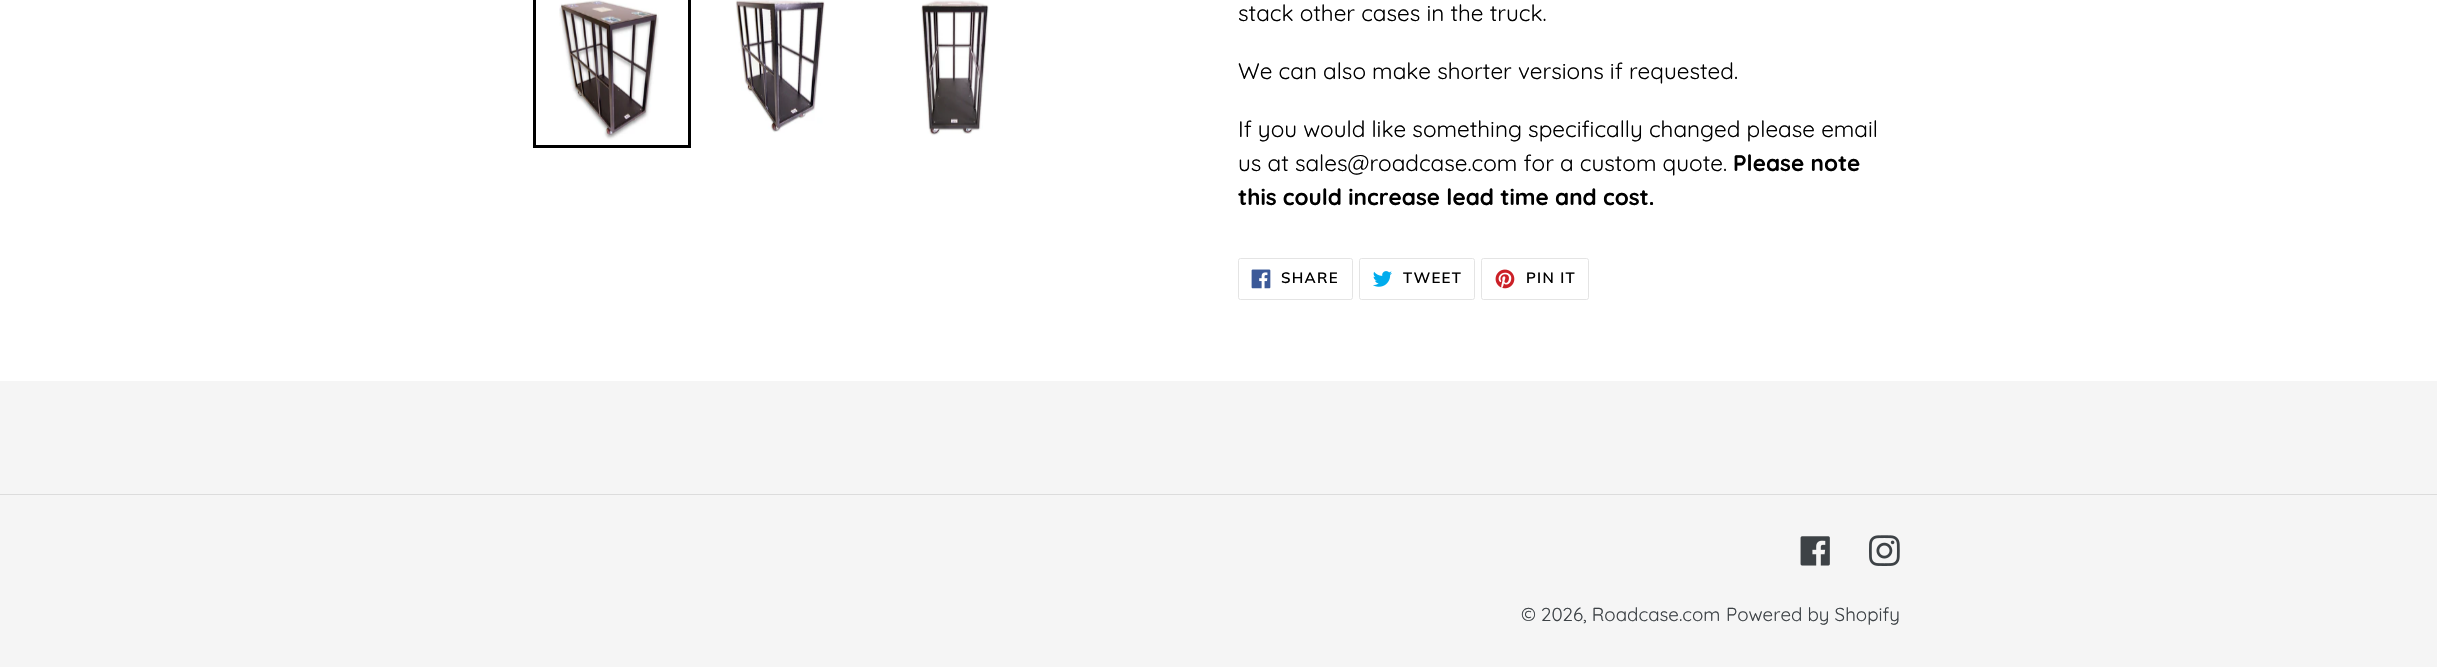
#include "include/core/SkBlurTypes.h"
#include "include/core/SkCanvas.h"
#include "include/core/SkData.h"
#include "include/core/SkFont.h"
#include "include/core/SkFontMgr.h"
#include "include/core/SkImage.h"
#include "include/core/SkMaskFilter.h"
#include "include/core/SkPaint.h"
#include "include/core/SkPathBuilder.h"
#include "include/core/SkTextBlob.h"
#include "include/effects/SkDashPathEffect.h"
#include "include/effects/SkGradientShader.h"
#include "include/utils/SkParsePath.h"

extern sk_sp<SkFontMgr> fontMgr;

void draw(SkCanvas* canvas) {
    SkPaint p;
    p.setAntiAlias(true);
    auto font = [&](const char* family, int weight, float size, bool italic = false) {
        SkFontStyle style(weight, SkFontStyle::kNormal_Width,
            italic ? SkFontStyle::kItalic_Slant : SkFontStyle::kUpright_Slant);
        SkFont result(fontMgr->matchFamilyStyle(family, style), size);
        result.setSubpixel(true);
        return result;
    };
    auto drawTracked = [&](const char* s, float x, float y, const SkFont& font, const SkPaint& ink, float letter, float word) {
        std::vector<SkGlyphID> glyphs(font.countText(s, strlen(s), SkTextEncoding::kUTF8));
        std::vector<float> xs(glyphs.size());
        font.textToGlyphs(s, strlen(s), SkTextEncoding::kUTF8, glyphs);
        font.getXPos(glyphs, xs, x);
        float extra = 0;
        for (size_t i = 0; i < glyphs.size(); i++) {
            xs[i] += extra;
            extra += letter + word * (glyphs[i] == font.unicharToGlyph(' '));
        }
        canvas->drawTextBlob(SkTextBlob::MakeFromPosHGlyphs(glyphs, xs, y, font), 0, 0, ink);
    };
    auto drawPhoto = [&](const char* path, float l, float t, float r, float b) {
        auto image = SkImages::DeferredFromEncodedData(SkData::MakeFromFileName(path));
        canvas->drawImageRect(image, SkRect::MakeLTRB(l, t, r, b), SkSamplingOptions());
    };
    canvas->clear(0xFFFFFFFF);
    p.setStyle(SkPaint::kStroke_Style);
    p.setStrokeWidth(3);
    p.setColor(0xFF000000);
    canvas->drawRect(SkRect::MakeLTRB(534.5f, -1.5f, 689.5f, 146.5f), p);
    drawPhoto("media/1.png", 559, 0, 659, 140);
    drawPhoto("media/2.png", 735, 0, 825, 133);
    drawPhoto("media/3.png", 921, 0, 989, 136);
    auto font1 = font("Quicksand", 400, 22.5f);
    p.setStyle(SkPaint::kFill_Style);
    {
        const struct { const char* s; float x, y; } items[] = {
            {"stack other cases in the truck.", 1238, 21},
            {"We can also make shorter versions if requested.", 1238, 79},
            {"If you would like something specifically changed please email", 1238, 137},
            {"us at sales@roadcase.com for a custom quote.", 1238, 171},
        };
        for (auto [s, x, y] : items) {
            canvas->drawString(s, x, y, font1, p);
        }
    }
    auto font2 = font("Quicksand", 700, 22.5f);
    canvas->drawString("Please note", 1733, 171, font2, p);
    canvas->drawString("this could increase lead time and cost.", 1238, 205, font2, p);
    p.setStyle(SkPaint::kStroke_Style);
    p.setStrokeWidth(1);
    p.setColor(0xFFE4E4E4);
    canvas->drawRoundRect(SkRect::MakeLTRB(1238.5f, 258.5f, 1352.5f, 299.5f), 2, 2, p);
    drawPhoto("media/4.png", 1251, 269, 1271, 289);
    auto font3 = font("Muli", 600, 15);
    p.setStyle(SkPaint::kFill_Style);
    p.setColor(0xFF000000);
    drawTracked("SHARE", 1281, 283, font3, p, 1.25f, 0);
    p.setStyle(SkPaint::kStroke_Style);
    p.setColor(0xFFE4E4E4);
    canvas->drawRoundRect(SkRect::MakeLTRB(1359.5f, 258.5f, 1474.5f, 299.5f), 2, 2, p);
    drawPhoto("media/5.png", 1373, 271, 1392, 287);
    p.setStyle(SkPaint::kFill_Style);
    p.setColor(0xFF000000);
    drawTracked("TWEET", 1403, 283, font3, p, 1.25f, 0);
    p.setStyle(SkPaint::kStroke_Style);
    p.setColor(0xFFE4E4E4);
    canvas->drawRoundRect(SkRect::MakeLTRB(1481.5f, 258.5f, 1588.5f, 299.5f), 2, 2, p);
    drawPhoto("media/6.png", 1495, 269, 1515, 289);
    p.setStyle(SkPaint::kFill_Style);
    p.setColor(0xFF000000);
    drawTracked("PIN IT", 1526, 283, font3, p, 1.25f, 0);
    p.setColor(0xFFF5F5F5);
    canvas->drawRect(SkRect::MakeLTRB(0, 381, 2437, 667), p);
    p.setColor(0xFFDCDCDC);
    canvas->drawRect(SkRect::MakeLTRB(0, 494, 2437, 495), p);
    drawPhoto("media/7.png", 1800, 536, 1830, 566);
    drawPhoto("media/8.png", 1869, 535, 1900, 566);
    auto font4 = font("Quicksand", 400, 18.75f);
    p.setColor(0xFF3D4246);
    canvas->drawString("© 2026, Roadcase.com", 1521, 621, font4, p);
    canvas->drawString("Powered by Shopify", 1726, 621, font4, p);
}
